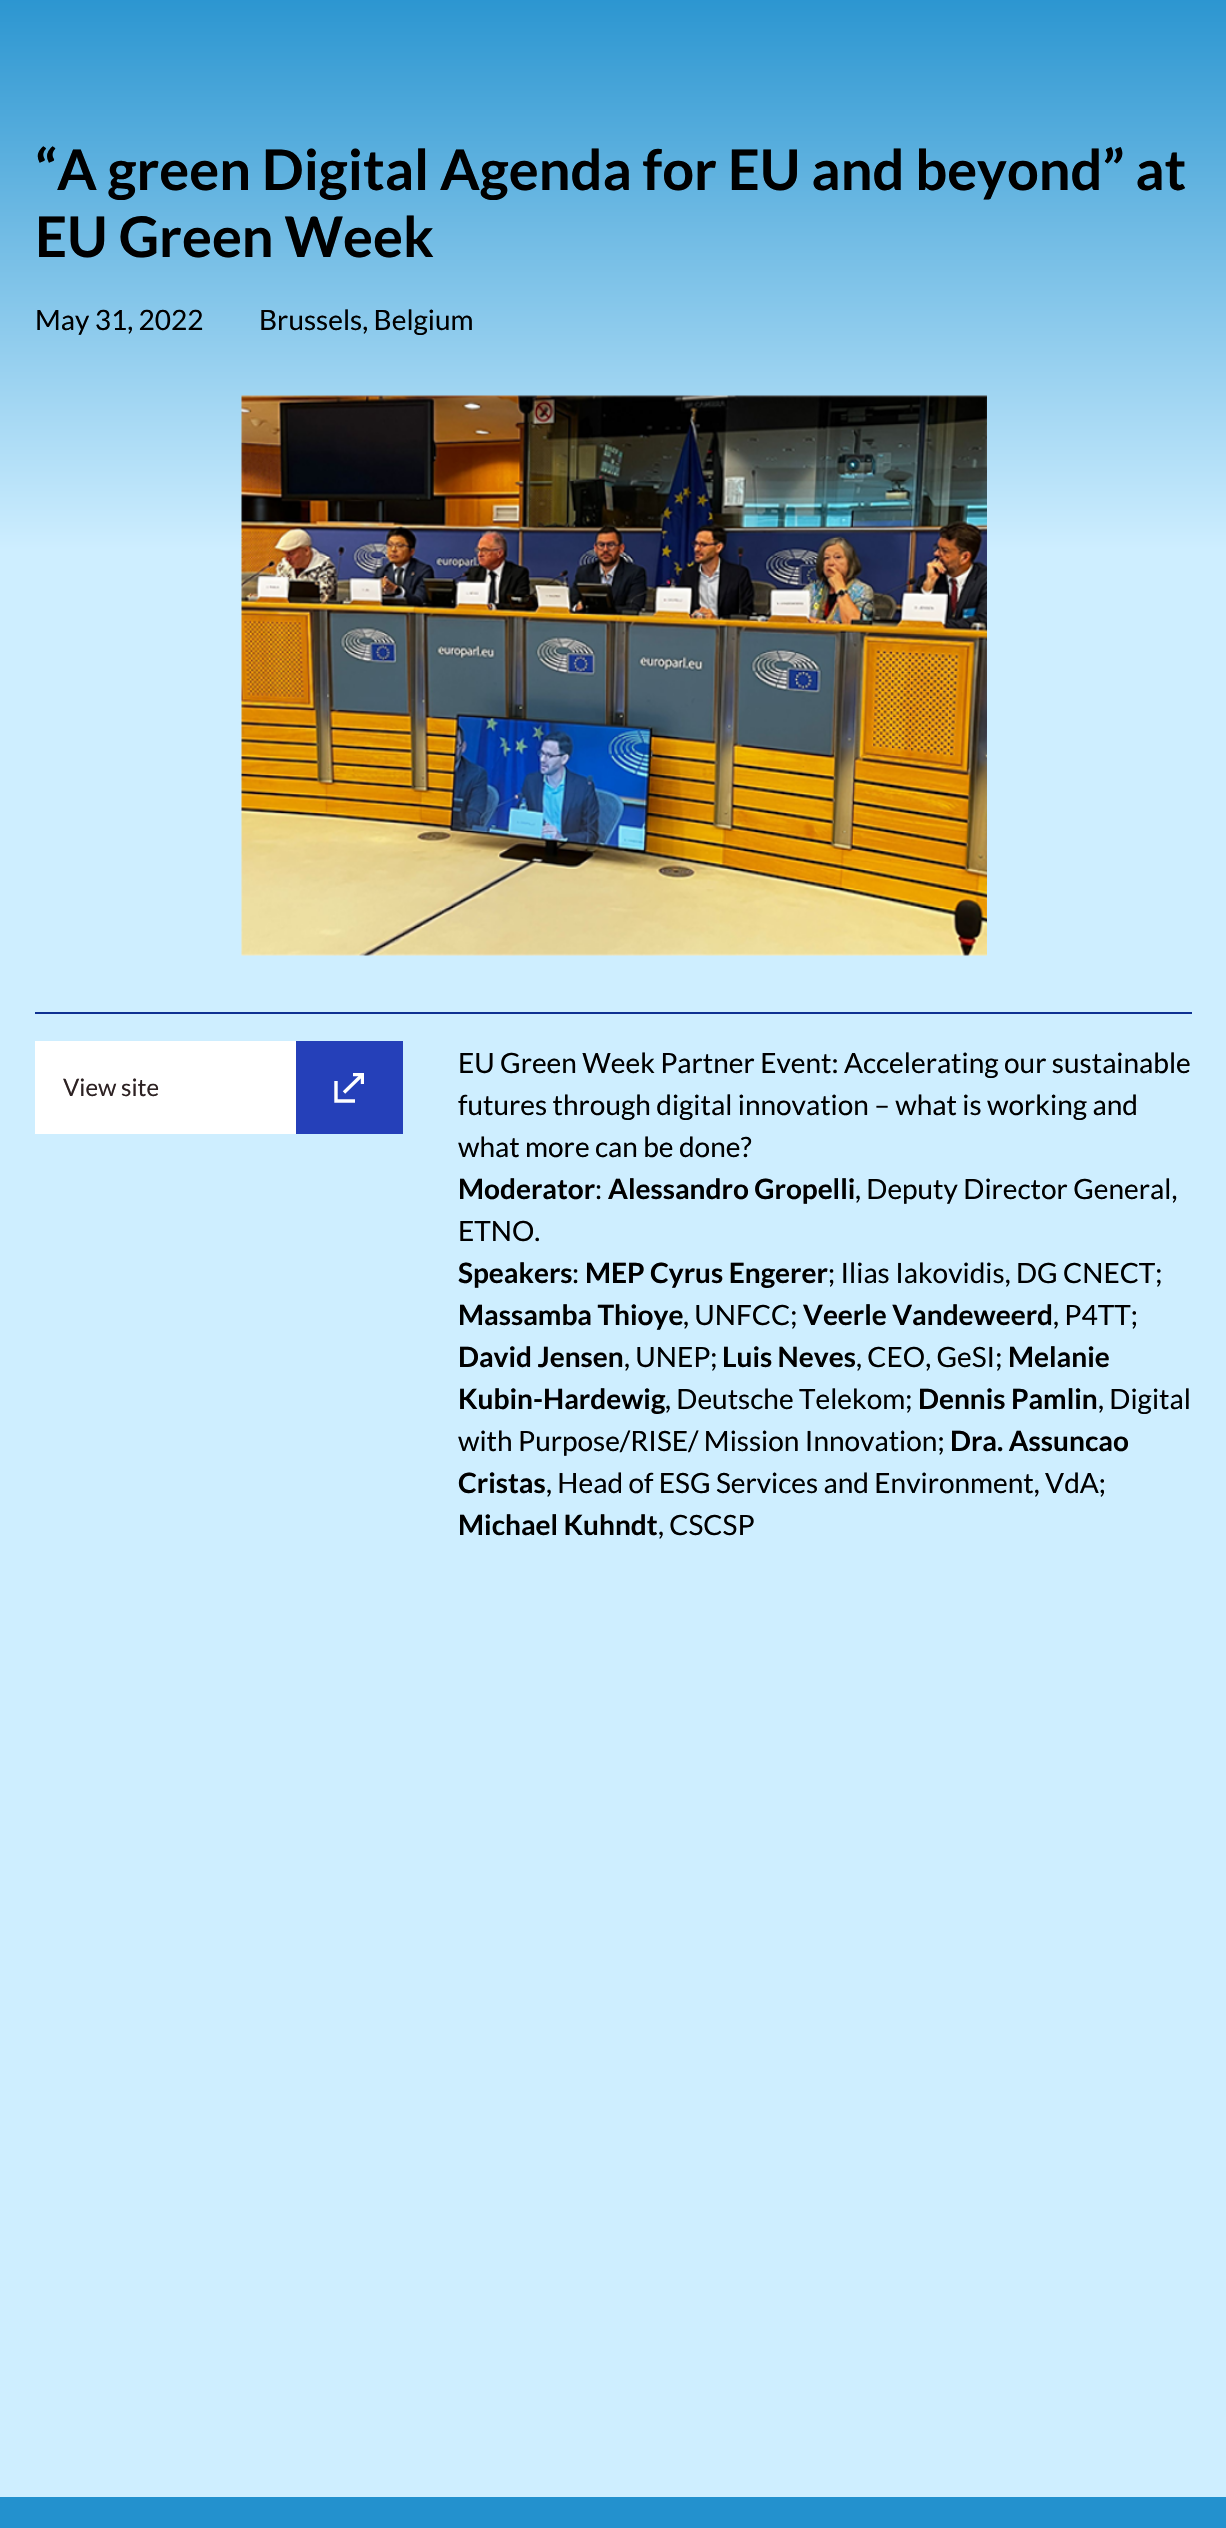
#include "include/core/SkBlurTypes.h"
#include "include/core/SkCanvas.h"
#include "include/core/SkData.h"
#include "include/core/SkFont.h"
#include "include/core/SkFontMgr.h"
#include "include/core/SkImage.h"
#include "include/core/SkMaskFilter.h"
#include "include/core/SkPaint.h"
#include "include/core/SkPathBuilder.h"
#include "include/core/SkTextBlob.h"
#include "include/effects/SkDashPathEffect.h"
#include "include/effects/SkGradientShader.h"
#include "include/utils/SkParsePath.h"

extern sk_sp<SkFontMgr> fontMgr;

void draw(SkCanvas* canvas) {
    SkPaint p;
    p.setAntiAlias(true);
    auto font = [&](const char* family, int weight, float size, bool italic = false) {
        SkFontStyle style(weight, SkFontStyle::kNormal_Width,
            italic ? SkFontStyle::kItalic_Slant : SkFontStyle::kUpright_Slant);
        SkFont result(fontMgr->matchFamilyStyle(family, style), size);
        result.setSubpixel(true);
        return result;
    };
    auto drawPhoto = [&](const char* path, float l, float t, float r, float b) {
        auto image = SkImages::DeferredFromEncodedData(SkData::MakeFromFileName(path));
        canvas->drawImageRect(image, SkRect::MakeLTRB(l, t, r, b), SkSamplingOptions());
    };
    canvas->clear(0xFFFFFFFF);
    {
        const SkColor colors[] = {0xFF2391CE, 0xFFCEEEFF};
        const float stops[] = {0, 0.23f};
        const SkPoint ends[] = {{613, -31}, {613, 2497}};
        p.setShader(SkGradientShader::MakeLinear(ends, colors, stops, 2, SkTileMode::kClamp));
        p.setAlpha(255);
    }
    canvas->drawRect(SkRect::MakeLTRB(0, 0, 1226, 2497), p);
    auto font1 = font("Lato", 700, 56);
    p.setShader(nullptr);
    p.setColor(0xFF000000);
    canvas->drawString("“A green Digital Agenda for EU and beyond” at", 35, 190, font1, p);
    canvas->drawString("EU Green Week", 35, 257, font1, p);
    auto font2 = font("Lato", 400, 28);
    canvas->drawString("May 31, 2022", 35, 330, font2, p);
    canvas->drawString("Brussels, Belgium", 259, 330, font2, p);
    drawPhoto("media/1.png", 241, 395, 987, 956);
    p.setColor(0xFF0E3192);
    canvas->drawRect(SkRect::MakeLTRB(35, 1012, 1192, 1014), p);
    p.setColor(0xFFFFFFFF);
    canvas->drawRect(SkRect::MakeLTRB(35, 1041, 296, 1134), p);
    auto font3 = font("Lato", 400, 24);
    p.setColor(0xFF2D2223);
    canvas->drawString("View site", 63, 1096, font3, p);
    p.setColor(0xFF2540B9);
    canvas->drawRect(SkRect::MakeLTRB(296, 1041, 403, 1134), p);
    p.setStyle(SkPaint::kStroke_Style);
    p.setStrokeWidth(3.4f);
    p.setColor(0xFFFFFFFF);
    canvas->drawPath(SkPathBuilder().moveTo(344, 1092.5f).lineTo(362.5f, 1074.5f).moveTo(336, 1081).lineTo(336, 1101).lineTo(355, 1101).detach(), p);
    canvas->save();
    canvas->clipRect(SkRect::MakeLTRB(334, 1073, 364, 1103));
    canvas->drawPath(SkPathBuilder().moveTo(353, 1074.5f).lineTo(362.5f, 1074.5f).lineTo(362.5f, 1084).detach(), p);
    canvas->restore();
    p.setStyle(SkPaint::kFill_Style);
    p.setColor(0xFF000000);
    {
        const struct { const char* s; float x, y; } items[] = {
            {"EU Green Week Partner Event: Accelerating our sustainable", 458, 1073},
            {"futures through digital innovation – what is working and", 458, 1115},
            {"what more can be done?", 458, 1157},
        };
        for (auto [s, x, y] : items) {
            canvas->drawString(s, x, y, font2, p);
        }
    }
    auto font4 = font("Lato", 700, 28);
    canvas->drawString("Moderator", 458, 1199, font4, p);
    canvas->drawString(":", 595, 1199, font2, p);
    canvas->drawString("Alessandro Gropelli", 608, 1199, font4, p);
    canvas->drawString(", Deputy Director General,", 855, 1199, font2, p);
    canvas->drawString("ETNO.", 458, 1241, font2, p);
    canvas->drawString("Speakers", 458, 1283, font4, p);
    canvas->drawString(":", 572, 1283, font2, p);
    canvas->drawString("MEP Cyrus Engerer", 585, 1283, font4, p);
    canvas->drawString("; Ilias Iakovidis, DG CNECT;", 828, 1283, font2, p);
    canvas->drawString("Massamba Thioye", 458, 1325, font4, p);
    canvas->drawString(", UNFCC;", 683, 1325, font2, p);
    canvas->drawString("Veerle Vandeweerd", 803, 1325, font4, p);
    canvas->drawString(", P4TT;", 1053, 1325, font2, p);
    canvas->drawString("David Jensen", 458, 1367, font4, p);
    canvas->drawString(", UNEP;", 624, 1367, font2, p);
    canvas->drawString("Luis Neves", 722, 1367, font4, p);
    canvas->drawString(", CEO, GeSI;", 856, 1367, font2, p);
    canvas->drawString("Melanie", 1008, 1367, font4, p);
    canvas->drawString("Kubin-Hardewig", 458, 1409, font4, p);
    canvas->drawString(", Deutsche Telekom;", 665, 1409, font2, p);
    canvas->drawString("Dennis Pamlin", 918, 1409, font4, p);
    canvas->drawString(", Digital", 1098, 1409, font2, p);
    canvas->drawString("with Purpose/RISE/ Mission Innovation;", 458, 1451, font2, p);
    canvas->drawString("Dra. Assuncao", 950, 1451, font4, p);
    canvas->drawString("Cristas", 458, 1493, font4, p);
    canvas->drawString(", Head of ESG Services and Environment, VdA;", 546, 1493, font2, p);
    canvas->drawString("Michael Kuhndt", 458, 1535, font4, p);
    canvas->drawString(", CSCSP", 658, 1535, font2, p);
    p.setColor(0xFF2391CE);
    canvas->drawRect(SkRect::MakeLTRB(0, 2497, 1226, 2528), p);
}
